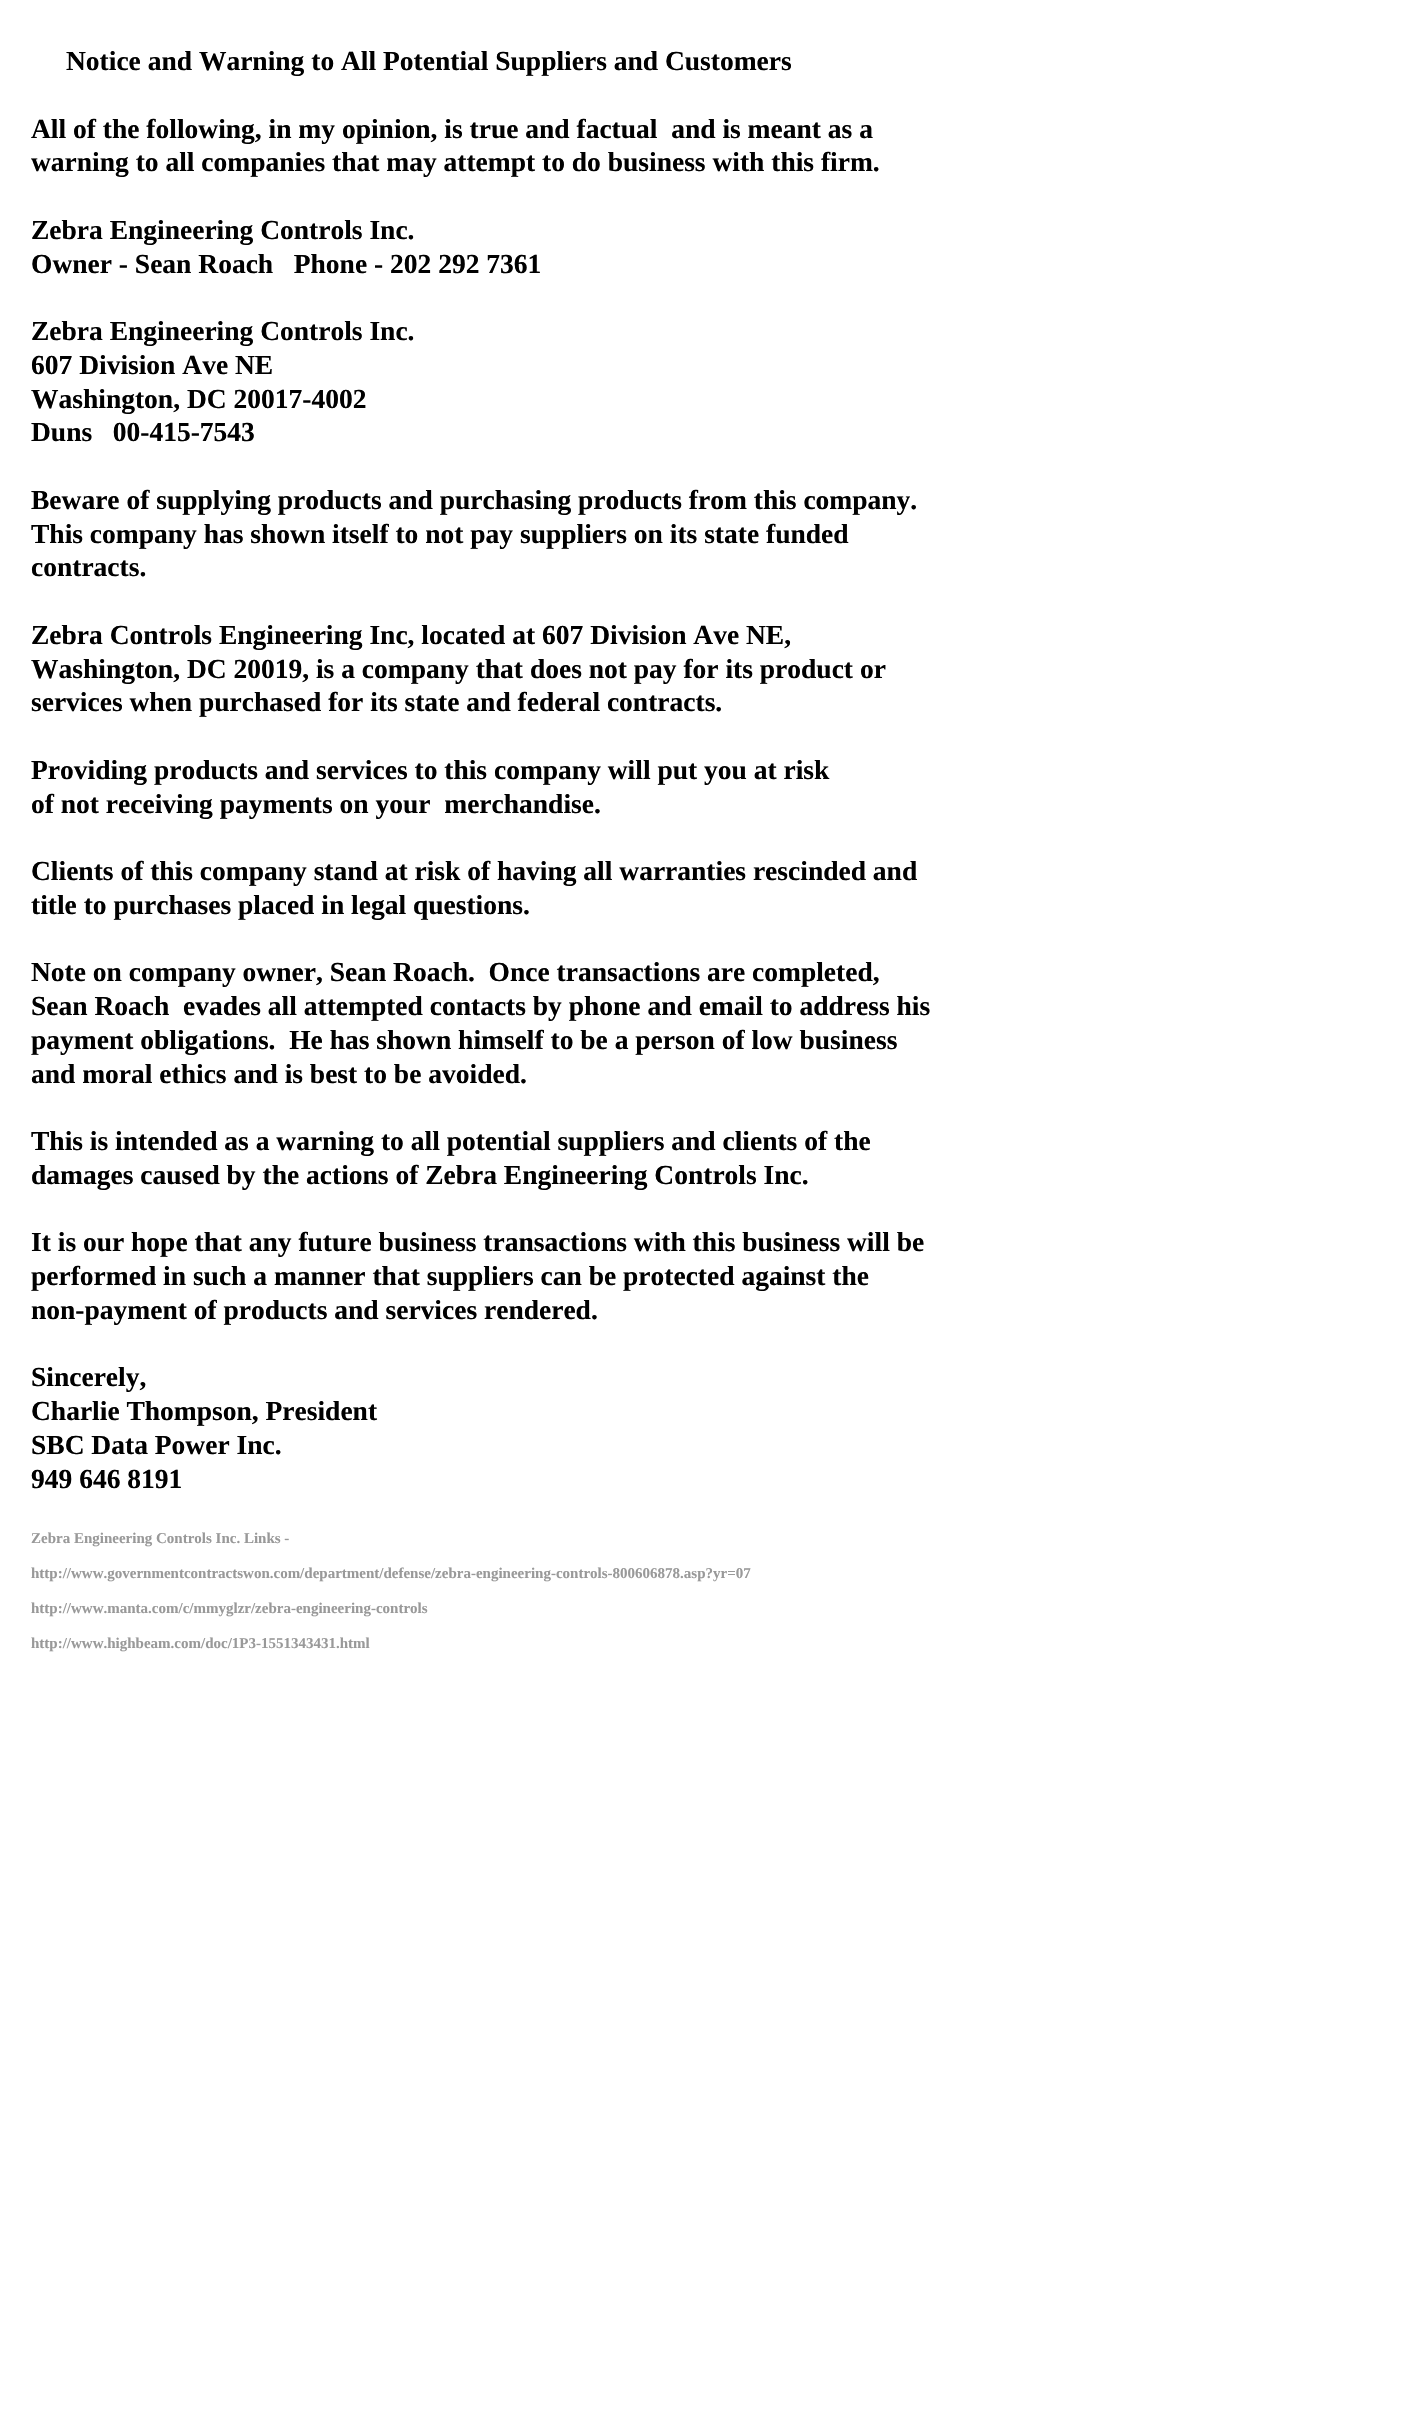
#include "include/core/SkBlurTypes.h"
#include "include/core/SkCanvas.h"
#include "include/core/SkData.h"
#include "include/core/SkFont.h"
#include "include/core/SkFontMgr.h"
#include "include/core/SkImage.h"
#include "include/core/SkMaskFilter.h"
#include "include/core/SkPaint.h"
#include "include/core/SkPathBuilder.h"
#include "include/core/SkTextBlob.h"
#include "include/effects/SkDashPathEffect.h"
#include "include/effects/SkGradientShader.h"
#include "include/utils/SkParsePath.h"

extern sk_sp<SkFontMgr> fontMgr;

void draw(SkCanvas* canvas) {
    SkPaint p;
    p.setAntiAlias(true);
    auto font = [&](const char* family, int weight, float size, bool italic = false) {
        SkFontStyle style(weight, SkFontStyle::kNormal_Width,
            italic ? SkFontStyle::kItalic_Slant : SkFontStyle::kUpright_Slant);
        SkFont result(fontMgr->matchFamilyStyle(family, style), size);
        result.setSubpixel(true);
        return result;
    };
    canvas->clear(0xFFFFFFFF);
    auto font1 = font("Liberation Serif", 700, 27.5f);
    p.setColor(0xFF000000);
    {
        const struct { const char* s; float x, y; } items[] = {
            {"Notice and Warning to All Potential Suppliers and Customers", 66, 70},
            {"All of the following, in my opinion, is true and factual  and is meant as a", 31, 138},
            {"warning to all companies that may attempt to do business with this firm.", 31, 171},
            {"Zebra Engineering Controls Inc.", 31, 239},
            {"Owner - Sean Roach   Phone - 202 292 7361", 31, 273},
            {"Zebra Engineering Controls Inc.", 31, 340},
            {"607 Division Ave NE", 31, 374},
            {"Washington, DC 20017-4002", 31, 408},
            {"Duns   00-415-7543", 31, 441},
            {"Beware of supplying products and purchasing products from this company.", 31, 509},
            {"This company has shown itself to not pay suppliers on its state funded", 31, 543},
            {"contracts.", 31, 576},
            {"Zebra Controls Engineering Inc, located at 607 Division Ave NE,", 31, 644},
            {"Washington, DC 20019, is a company that does not pay for its product or", 31, 678},
            {"services when purchased for its state and federal contracts.", 31, 711},
            {"Providing products and services to this company will put you at risk", 31, 779},
            {"of not receiving payments on your  merchandise.", 31, 813},
            {"Clients of this company stand at risk of having all warranties rescinded and", 31, 880},
            {"title to purchases placed in legal questions.", 31, 914},
            {"Note on company owner, Sean Roach.  Once transactions are completed,", 31, 981},
            {"Sean Roach  evades all attempted contacts by phone and email to address his", 31, 1015},
            {"payment obligations.  He has shown himself to be a person of low business", 31, 1049},
            {"and moral ethics and is best to be avoided.", 31, 1083},
            {"This is intended as a warning to all potential suppliers and clients of the", 31, 1150},
            {"damages caused by the actions of Zebra Engineering Controls Inc.", 31, 1184},
            {"It is our hope that any future business transactions with this business will be", 31, 1251},
            {"performed in such a manner that suppliers can be protected against the", 31, 1285},
            {"non-payment of products and services rendered.", 31, 1319},
            {"Sincerely,", 31, 1386},
            {"Charlie Thompson, President", 31, 1420},
            {"SBC Data Power Inc.", 31, 1454},
            {"949 646 8191", 31, 1488},
        };
        for (auto [s, x, y] : items) {
            canvas->drawString(s, x, y, font1, p);
        }
    }
    auto font2 = font("Liberation Serif", 700, 15);
    p.setColor(0xFF999999);
    {
        const struct { const char* s; float x, y; } items[] = {
            {"Zebra Engineering Controls Inc. Links -", 31, 1543},
            {"http://www.governmentcontractswon.com/department/defense/zebra-engineering-controls-800606878.asp?yr=07", 31, 1578},
            {"http://www.manta.com/c/mmyglzr/zebra-engineering-controls", 31, 1613},
            {"http://www.highbeam.com/doc/1P3-1551343431.html", 31, 1648},
        };
        for (auto [s, x, y] : items) {
            canvas->drawString(s, x, y, font2, p);
        }
    }
}
